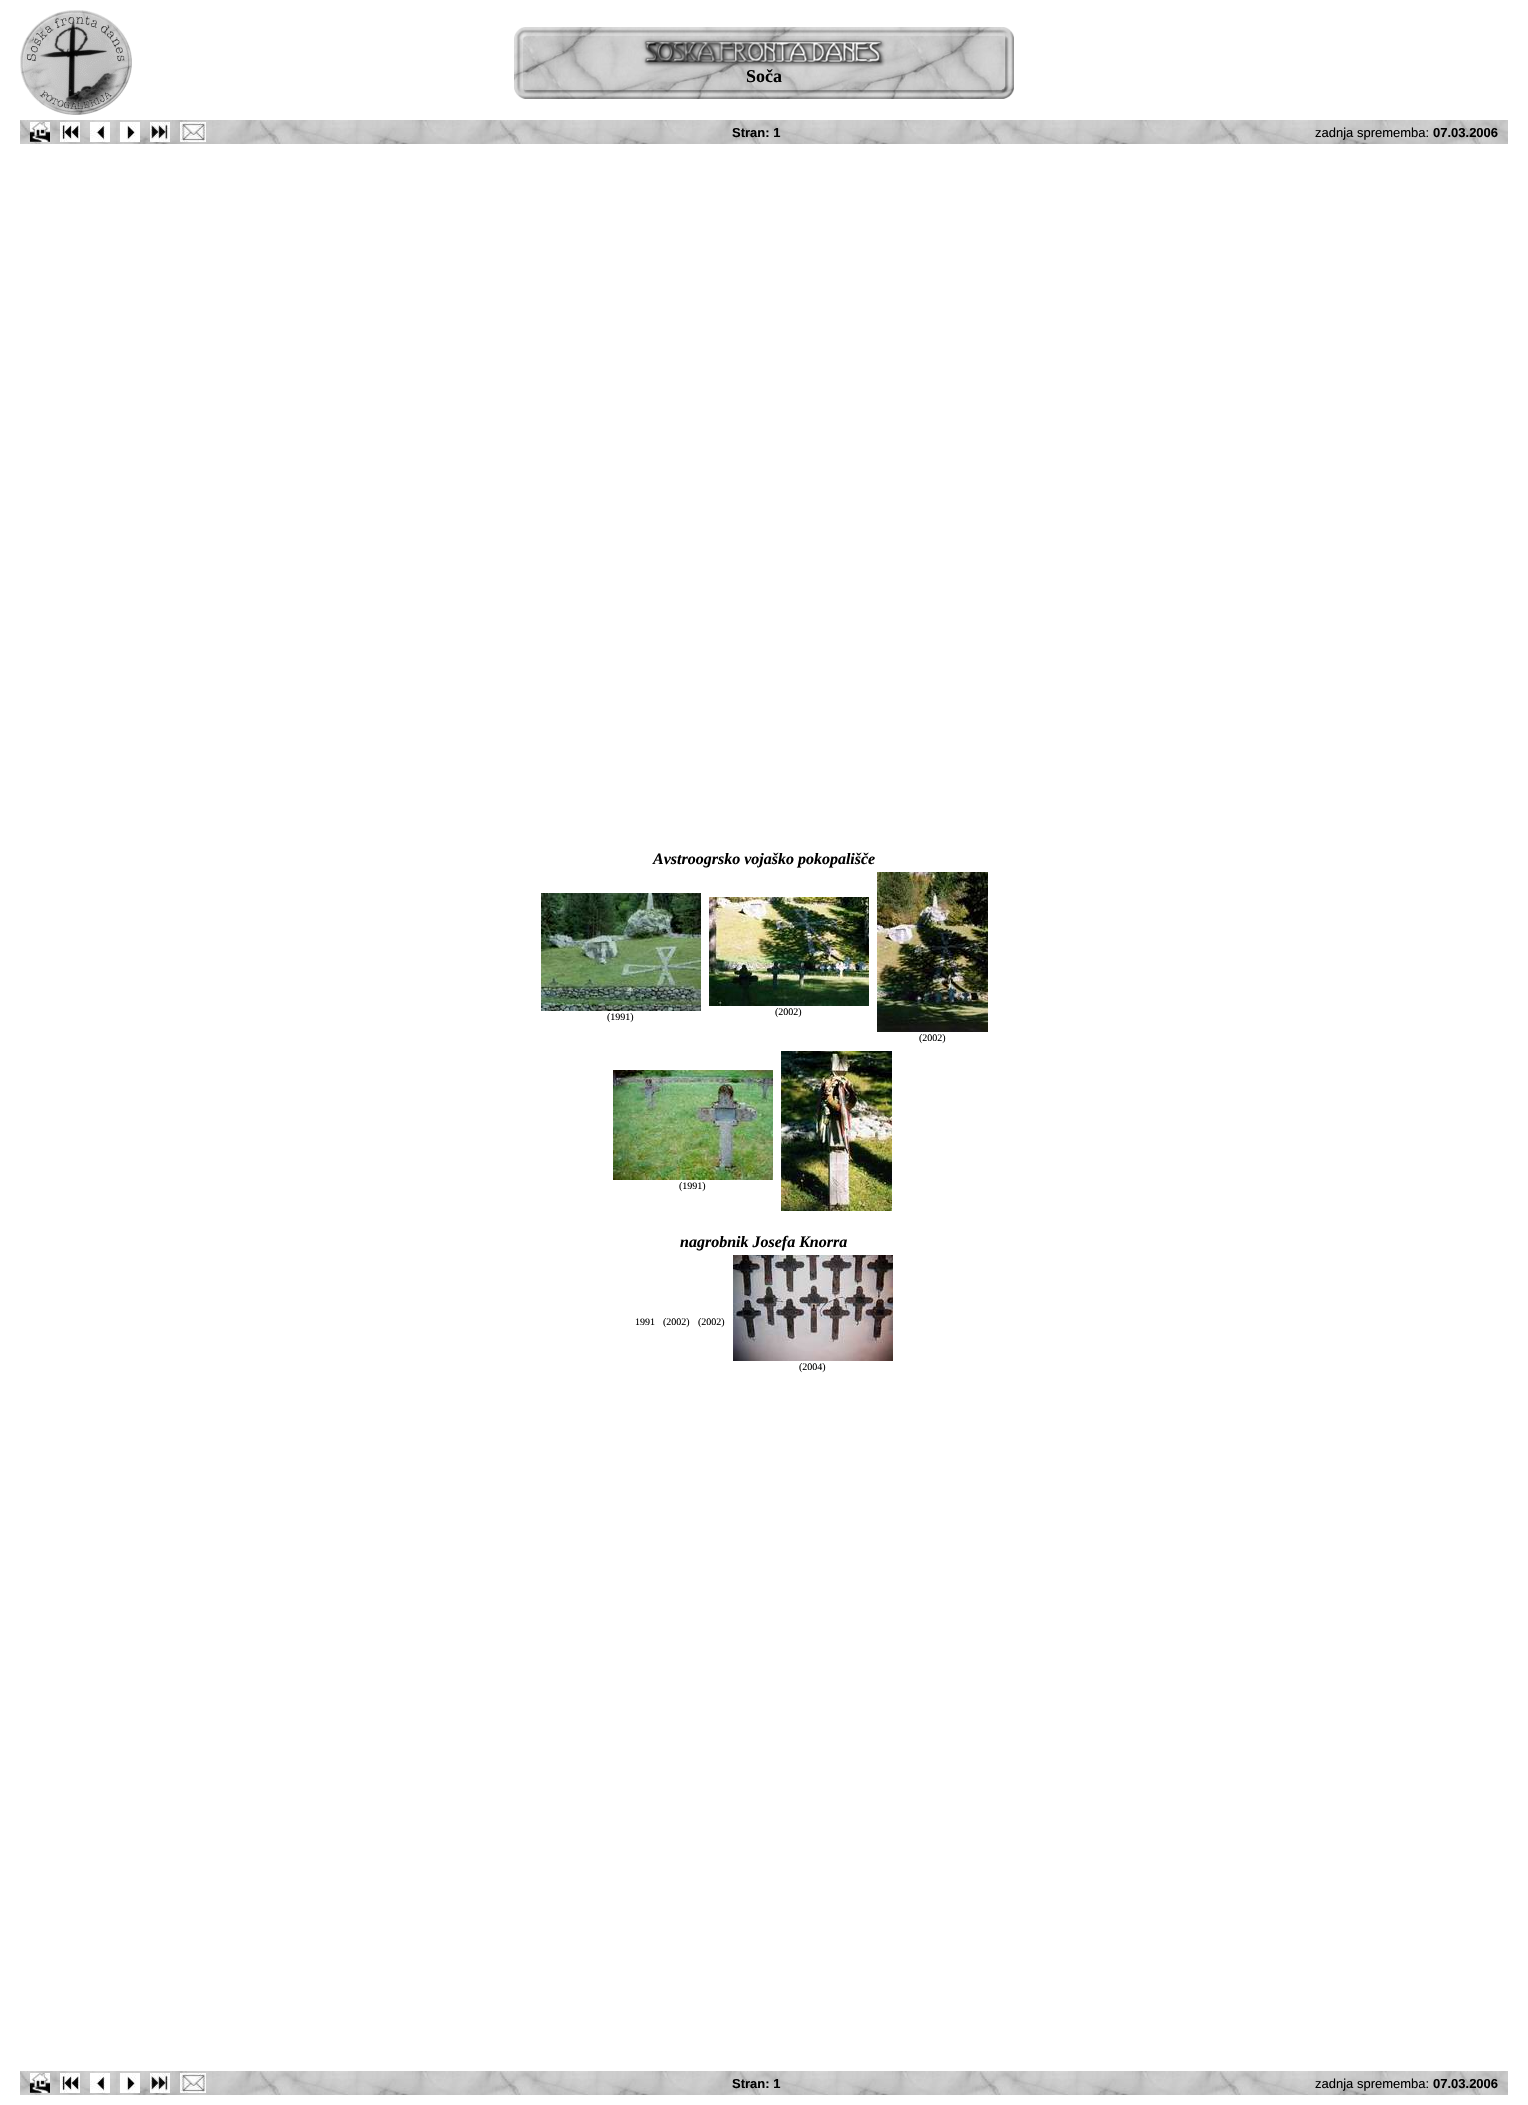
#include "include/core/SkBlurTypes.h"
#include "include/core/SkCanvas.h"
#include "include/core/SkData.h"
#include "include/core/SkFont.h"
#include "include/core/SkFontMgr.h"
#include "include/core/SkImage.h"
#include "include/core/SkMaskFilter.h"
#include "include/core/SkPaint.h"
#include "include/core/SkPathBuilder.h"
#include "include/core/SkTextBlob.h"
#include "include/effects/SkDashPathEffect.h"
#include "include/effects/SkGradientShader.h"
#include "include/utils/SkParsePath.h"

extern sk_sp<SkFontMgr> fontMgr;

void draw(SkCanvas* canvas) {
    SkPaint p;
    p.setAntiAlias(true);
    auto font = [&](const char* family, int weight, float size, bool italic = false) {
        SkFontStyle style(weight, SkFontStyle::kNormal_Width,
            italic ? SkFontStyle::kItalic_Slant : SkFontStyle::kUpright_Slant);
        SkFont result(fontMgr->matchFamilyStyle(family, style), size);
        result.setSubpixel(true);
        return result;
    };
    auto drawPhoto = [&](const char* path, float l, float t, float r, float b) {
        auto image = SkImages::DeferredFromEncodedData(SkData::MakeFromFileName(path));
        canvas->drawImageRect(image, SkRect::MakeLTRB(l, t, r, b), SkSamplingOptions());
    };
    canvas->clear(0xFFFFFFFF);
    drawPhoto("media/1.png", 20, 10, 132, 115);
    drawPhoto("media/2.png", 514, 27, 1014, 99);
    auto font1 = font("Liberation Serif", 700, 18);
    p.setColor(0xFF000000);
    canvas->drawString("Soča", 746, 82, font1, p);
    drawPhoto("media/3.png", 20, 120, 1508, 144);
    drawPhoto("media/4.png", 30, 122, 50, 142);
    drawPhoto("media/5.png", 60, 122, 80, 142);
    drawPhoto("media/6.png", 90, 122, 110, 142);
    drawPhoto("media/7.png", 120, 122, 140, 142);
    drawPhoto("media/8.png", 150, 122, 170, 142);
    drawPhoto("media/9.png", 180, 122, 206, 142);
    auto font2 = font("Liberation Sans", 700, 13);
    canvas->drawString("Stran: 1", 732, 137, font2, p);
    auto font3 = font("Liberation Sans", 400, 13);
    canvas->drawString("zadnja sprememba:", 1315, 137, font3, p);
    canvas->drawString("07.03.2006", 1433, 137, font2, p);
    auto font4 = font("Liberation Serif", 700, 16, true);
    canvas->drawString("Avstroogrsko vojaško pokopališče", 653, 864, font4, p);
    drawPhoto("media/10.png", 541, 893, 701, 1011);
    auto font5 = font("Liberation Serif", 400, 10);
    canvas->drawString("(1991)", 607, 1020, font5, p);
    drawPhoto("media/11.png", 709, 897, 869, 1006);
    canvas->drawString("(2002)", 775, 1015, font5, p);
    drawPhoto("media/12.png", 877, 872, 988, 1032);
    canvas->drawString("(2002)", 919, 1041, font5, p);
    drawPhoto("media/13.png", 613, 1070, 773, 1180);
    canvas->drawString("(1991)", 679, 1189, font5, p);
    drawPhoto("media/14.png", 781, 1051, 892, 1211);
    canvas->drawString("nagrobnik Josefa Knorra", 680, 1247, font4, p);
    {
        const struct { const char* s; float x, y; } items[] = {
            {"1991", 635, 1325},
            {"(2002)", 663, 1325},
            {"(2002)", 698, 1325},
        };
        for (auto [s, x, y] : items) {
            canvas->drawString(s, x, y, font5, p);
        }
    }
    drawPhoto("media/15.png", 733, 1255, 893, 1361);
    canvas->drawString("(2004)", 799, 1370, font5, p);
    drawPhoto("media/3.png", 20, 2071, 1508, 2095);
    drawPhoto("media/4.png", 30, 2073, 50, 2093);
    drawPhoto("media/5.png", 60, 2073, 80, 2093);
    drawPhoto("media/6.png", 90, 2073, 110, 2093);
    drawPhoto("media/7.png", 120, 2073, 140, 2093);
    drawPhoto("media/8.png", 150, 2073, 170, 2093);
    drawPhoto("media/9.png", 180, 2073, 206, 2093);
    canvas->drawString("Stran: 1", 732, 2088, font2, p);
    canvas->drawString("zadnja sprememba:", 1315, 2088, font3, p);
    canvas->drawString("07.03.2006", 1433, 2088, font2, p);
}
